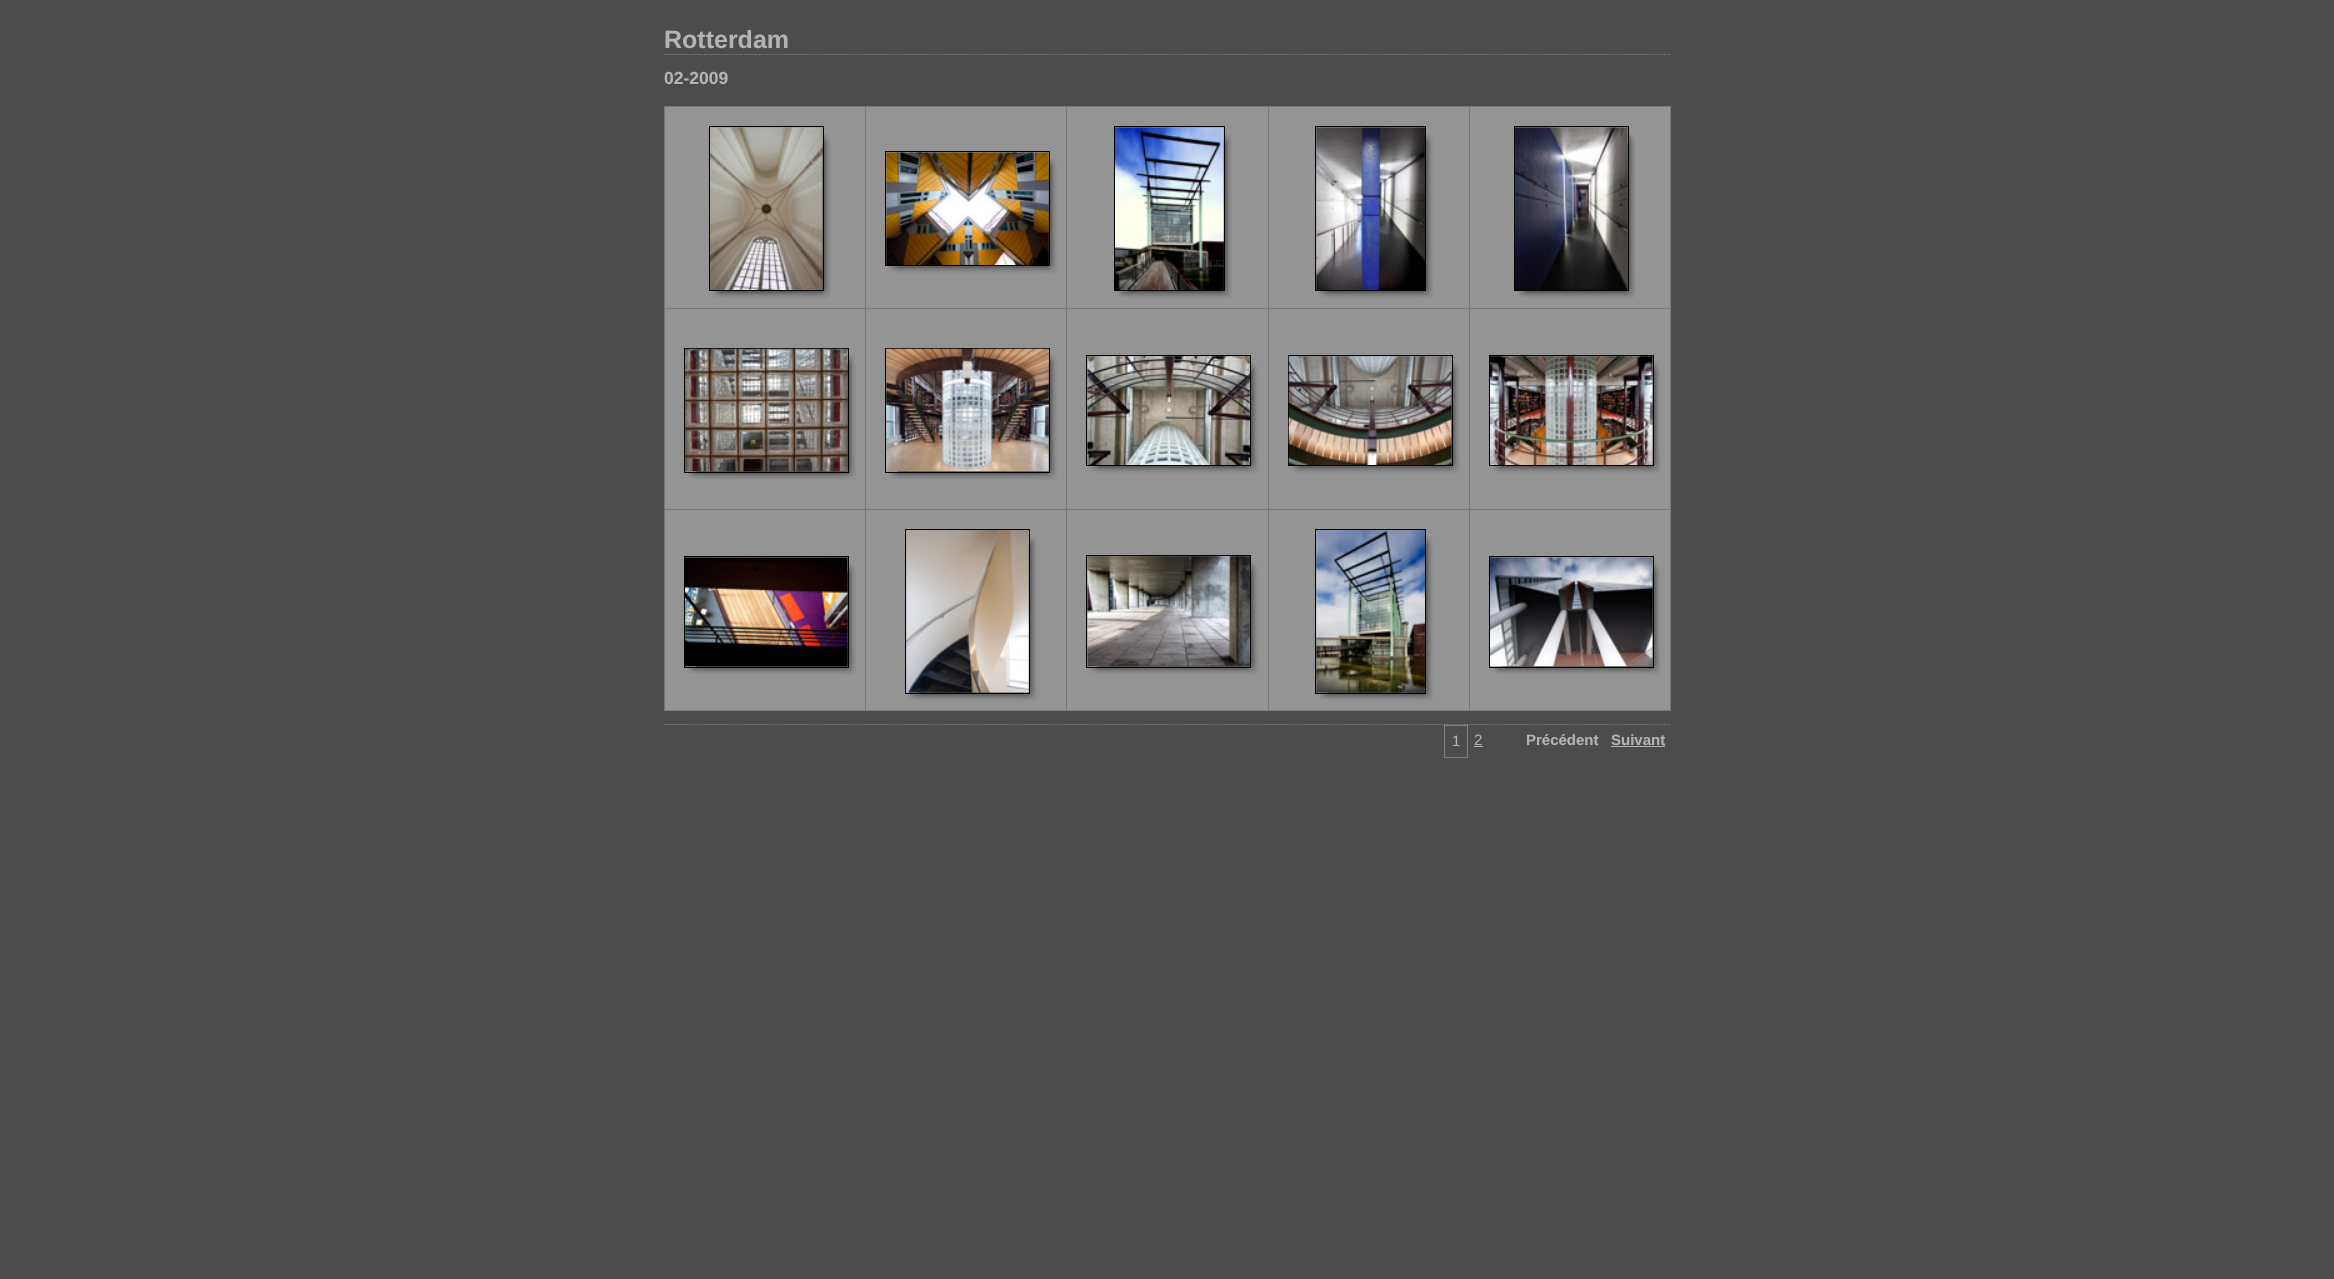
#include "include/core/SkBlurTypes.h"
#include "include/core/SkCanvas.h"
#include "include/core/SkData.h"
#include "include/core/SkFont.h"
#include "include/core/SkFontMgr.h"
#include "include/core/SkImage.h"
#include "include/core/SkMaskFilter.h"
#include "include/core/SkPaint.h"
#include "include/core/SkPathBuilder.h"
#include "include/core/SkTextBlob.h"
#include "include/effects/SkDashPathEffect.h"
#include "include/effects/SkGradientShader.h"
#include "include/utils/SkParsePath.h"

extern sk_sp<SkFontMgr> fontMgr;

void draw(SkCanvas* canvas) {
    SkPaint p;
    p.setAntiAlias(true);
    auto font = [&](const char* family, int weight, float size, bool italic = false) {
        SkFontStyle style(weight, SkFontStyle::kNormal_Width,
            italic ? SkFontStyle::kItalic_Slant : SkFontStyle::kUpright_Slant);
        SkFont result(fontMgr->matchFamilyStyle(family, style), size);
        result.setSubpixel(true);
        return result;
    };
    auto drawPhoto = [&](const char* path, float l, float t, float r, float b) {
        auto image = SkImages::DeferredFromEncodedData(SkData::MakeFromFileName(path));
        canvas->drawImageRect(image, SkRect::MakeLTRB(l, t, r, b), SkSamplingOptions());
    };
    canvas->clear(0xFF4C4C4C);
    p.setStyle(SkPaint::kStroke_Style);
    p.setStrokeWidth(1.2f);
    p.setColor(0xFF7F7F7F);
    p.setPathEffect(SkDashPathEffect::Make({{1.25f, 1.25f}}, 0));
    canvas->drawPath(SkPathBuilder().moveTo(664, 54.5f).lineTo(1671, 54.5f).detach(), p);
    p.setPathEffect(nullptr);
    auto font1 = font("Liberation Sans", 700, 25);
    p.setStyle(SkPaint::kFill_Style);
    p.setColor(0xFFB3B3B3);
    canvas->drawString("Rotterdam", 664, 48, font1, p);
    auto font2 = font("Liberation Sans", 700, 17.5f);
    canvas->drawString("02-2009", 664, 84, font2, p);
    p.setStyle(SkPaint::kStroke_Style);
    p.setStrokeWidth(1);
    p.setColor(0xFF7F7F7F);
    canvas->drawRect(SkRect::MakeLTRB(1444.5f, 725.5f, 1467.5f, 757.5f), p);
    p.setStrokeWidth(1.2f);
    p.setPathEffect(SkDashPathEffect::Make({{1.25f, 1.25f}}, 0));
    canvas->drawPath(SkPathBuilder().moveTo(664, 724.5f).lineTo(1671, 724.5f).detach(), p);
    p.setPathEffect(nullptr);
    p.setStyle(SkPaint::kFill_Style);
    {
        const struct { float l, t, r, b; SkColor color; } items[] = {
            {665, 107, 865, 308, 0xFF949494},
            {664, 106, 1671, 107, 0xFF787878},
            {664, 106, 665, 308, 0xFF787878},
        };
        for (auto [l, t, r, b, color] : items) {
            p.setColor(color);
            canvas->drawRect(SkRect::MakeLTRB(l, t, r, b), p);
        }
    }
    drawPhoto("media/1.png", 721, 142, 831, 299);
    p.setStyle(SkPaint::kStroke_Style);
    p.setStrokeWidth(1);
    p.setColor(0xFF000000);
    canvas->drawRect(SkRect::MakeLTRB(709.5f, 126.5f, 823.5f, 290.5f), p);
    drawPhoto("media/2.png", 710, 127, 823, 290);
    drawPhoto("media/3.png", 824, 133, 830, 143);
    drawPhoto("media/4.png", 712, 291, 722, 298);
    p.setStyle(SkPaint::kFill_Style);
    p.setColor(0xFF949494);
    canvas->drawRect(SkRect::MakeLTRB(866, 107, 1066, 308), p);
    p.setColor(0xFF787878);
    canvas->drawRect(SkRect::MakeLTRB(865, 106, 866, 308), p);
    drawPhoto("media/5.png", 897, 167, 1057, 274);
    p.setStyle(SkPaint::kStroke_Style);
    p.setColor(0xFF000000);
    canvas->drawRect(SkRect::MakeLTRB(885.5f, 151.5f, 1049.5f, 265.5f), p);
    drawPhoto("media/6.png", 886, 152, 1049, 265);
    drawPhoto("media/7.png", 1050, 158, 1057, 168);
    drawPhoto("media/8.png", 888, 266, 898, 273);
    p.setStyle(SkPaint::kFill_Style);
    p.setColor(0xFF949494);
    canvas->drawRect(SkRect::MakeLTRB(1067, 107, 1268, 308), p);
    p.setColor(0xFF787878);
    canvas->drawRect(SkRect::MakeLTRB(1066, 106, 1067, 308), p);
    drawPhoto("media/9.png", 1126, 142, 1232, 299);
    p.setStyle(SkPaint::kStroke_Style);
    p.setColor(0xFF000000);
    canvas->drawRect(SkRect::MakeLTRB(1114.5f, 126.5f, 1224.5f, 290.5f), p);
    drawPhoto("media/10.png", 1115, 127, 1224, 290);
    drawPhoto("media/11.png", 1225, 133, 1232, 143);
    drawPhoto("media/4.png", 1117, 291, 1127, 298);
    p.setStyle(SkPaint::kFill_Style);
    p.setColor(0xFF949494);
    canvas->drawRect(SkRect::MakeLTRB(1269, 107, 1469, 308), p);
    p.setColor(0xFF787878);
    canvas->drawRect(SkRect::MakeLTRB(1268, 106, 1269, 308), p);
    drawPhoto("media/12.png", 1327, 142, 1434, 299);
    p.setStyle(SkPaint::kStroke_Style);
    p.setColor(0xFF000000);
    canvas->drawRect(SkRect::MakeLTRB(1315.5f, 126.5f, 1425.5f, 290.5f), p);
    drawPhoto("media/13.png", 1316, 127, 1425, 290);
    drawPhoto("media/14.png", 1426, 133, 1433, 143);
    drawPhoto("media/15.png", 1318, 291, 1328, 298);
    p.setStyle(SkPaint::kFill_Style);
    {
        const struct { float l, t, r, b; SkColor color; } items[] = {
            {1470, 107, 1670, 308, 0xFF949494},
            {1670, 106, 1671, 308, 0xFF787878},
            {1469, 106, 1470, 308, 0xFF787878},
        };
        for (auto [l, t, r, b, color] : items) {
            p.setColor(color);
            canvas->drawRect(SkRect::MakeLTRB(l, t, r, b), p);
        }
    }
    drawPhoto("media/1.png", 1526, 142, 1636, 299);
    p.setStyle(SkPaint::kStroke_Style);
    p.setColor(0xFF000000);
    canvas->drawRect(SkRect::MakeLTRB(1514.5f, 126.5f, 1628.5f, 290.5f), p);
    drawPhoto("media/16.png", 1515, 127, 1628, 290);
    drawPhoto("media/3.png", 1629, 133, 1635, 143);
    drawPhoto("media/17.png", 1517, 291, 1527, 298);
    p.setStyle(SkPaint::kFill_Style);
    {
        const struct { float l, t, r, b; SkColor color; } items[] = {
            {665, 309, 865, 509, 0xFF949494},
            {664, 308, 1671, 309, 0xFF787878},
            {664, 308, 665, 509, 0xFF787878},
        };
        for (auto [l, t, r, b, color] : items) {
            p.setColor(color);
            canvas->drawRect(SkRect::MakeLTRB(l, t, r, b), p);
        }
    }
    drawPhoto("media/18.png", 696, 363, 856, 480);
    p.setStyle(SkPaint::kStroke_Style);
    p.setColor(0xFF000000);
    canvas->drawRect(SkRect::MakeLTRB(684.5f, 348.5f, 848.5f, 472.5f), p);
    drawPhoto("media/19.png", 685, 348, 848, 472);
    drawPhoto("media/20.png", 849, 354, 855, 364);
    drawPhoto("media/21.png", 687, 473, 697, 479);
    p.setStyle(SkPaint::kFill_Style);
    p.setColor(0xFF949494);
    canvas->drawRect(SkRect::MakeLTRB(866, 309, 1066, 509), p);
    p.setColor(0xFF787878);
    canvas->drawRect(SkRect::MakeLTRB(865, 308, 866, 509), p);
    drawPhoto("media/22.png", 897, 363, 1057, 480);
    p.setStyle(SkPaint::kStroke_Style);
    p.setColor(0xFF000000);
    canvas->drawRect(SkRect::MakeLTRB(885.5f, 348.5f, 1049.5f, 472.5f), p);
    drawPhoto("media/23.png", 886, 348, 1049, 472);
    drawPhoto("media/24.png", 1050, 354, 1057, 364);
    drawPhoto("media/25.png", 888, 473, 898, 479);
    p.setStyle(SkPaint::kFill_Style);
    p.setColor(0xFF949494);
    canvas->drawRect(SkRect::MakeLTRB(1067, 309, 1268, 509), p);
    p.setColor(0xFF787878);
    canvas->drawRect(SkRect::MakeLTRB(1066, 308, 1067, 509), p);
    drawPhoto("media/26.png", 1098, 371, 1259, 474);
    p.setStyle(SkPaint::kStroke_Style);
    p.setColor(0xFF000000);
    canvas->drawRect(SkRect::MakeLTRB(1086.5f, 355.5f, 1250.5f, 465.5f), p);
    drawPhoto("media/27.png", 1087, 356, 1250, 465);
    drawPhoto("media/28.png", 1251, 362, 1258, 372);
    drawPhoto("media/29.png", 1089, 466, 1099, 473);
    p.setStyle(SkPaint::kFill_Style);
    p.setColor(0xFF949494);
    canvas->drawRect(SkRect::MakeLTRB(1269, 309, 1469, 509), p);
    p.setColor(0xFF787878);
    canvas->drawRect(SkRect::MakeLTRB(1268, 308, 1269, 509), p);
    drawPhoto("media/30.png", 1300, 371, 1460, 474);
    p.setStyle(SkPaint::kStroke_Style);
    p.setColor(0xFF000000);
    canvas->drawRect(SkRect::MakeLTRB(1288.5f, 355.5f, 1452.5f, 465.5f), p);
    drawPhoto("media/31.png", 1288, 356, 1452, 465);
    drawPhoto("media/32.png", 1453, 362, 1459, 372);
    drawPhoto("media/33.png", 1291, 466, 1300, 473);
    p.setStyle(SkPaint::kFill_Style);
    {
        const struct { float l, t, r, b; SkColor color; } items[] = {
            {1470, 309, 1670, 509, 0xFF949494},
            {1670, 308, 1671, 509, 0xFF787878},
            {1469, 308, 1470, 509, 0xFF787878},
        };
        for (auto [l, t, r, b, color] : items) {
            p.setColor(color);
            canvas->drawRect(SkRect::MakeLTRB(l, t, r, b), p);
        }
    }
    drawPhoto("media/34.png", 1501, 371, 1661, 474);
    p.setStyle(SkPaint::kStroke_Style);
    p.setColor(0xFF000000);
    canvas->drawRect(SkRect::MakeLTRB(1489.5f, 355.5f, 1653.5f, 465.5f), p);
    drawPhoto("media/35.png", 1490, 356, 1653, 465);
    drawPhoto("media/36.png", 1654, 362, 1660, 372);
    drawPhoto("media/37.png", 1492, 466, 1502, 473);
    p.setStyle(SkPaint::kFill_Style);
    {
        const struct { float l, t, r, b; SkColor color; } items[] = {
            {665, 510, 865, 710, 0xFF949494},
            {664, 509, 1469, 510, 0xFF787878},
            {664, 710, 1469, 711, 0xFF787878},
            {664, 509, 665, 711, 0xFF787878},
        };
        for (auto [l, t, r, b, color] : items) {
            p.setColor(color);
            canvas->drawRect(SkRect::MakeLTRB(l, t, r, b), p);
        }
    }
    drawPhoto("media/38.png", 696, 572, 856, 675);
    p.setStyle(SkPaint::kStroke_Style);
    p.setColor(0xFF000000);
    canvas->drawRect(SkRect::MakeLTRB(684.5f, 556.5f, 848.5f, 667.5f), p);
    drawPhoto("media/39.png", 685, 557, 848, 667);
    drawPhoto("media/3.png", 849, 563, 855, 573);
    drawPhoto("media/21.png", 687, 668, 697, 674);
    p.setStyle(SkPaint::kFill_Style);
    p.setColor(0xFF949494);
    canvas->drawRect(SkRect::MakeLTRB(866, 510, 1066, 710), p);
    p.setColor(0xFF787878);
    canvas->drawRect(SkRect::MakeLTRB(865, 509, 866, 711), p);
    drawPhoto("media/40.png", 917, 545, 1037, 701);
    p.setStyle(SkPaint::kStroke_Style);
    p.setColor(0xFF000000);
    canvas->drawRect(SkRect::MakeLTRB(905.5f, 529.5f, 1029.5f, 693.5f), p);
    drawPhoto("media/41.png", 906, 530, 1029, 693);
    drawPhoto("media/42.png", 1030, 535, 1037, 545);
    drawPhoto("media/43.png", 908, 694, 918, 700);
    p.setStyle(SkPaint::kFill_Style);
    p.setColor(0xFF949494);
    canvas->drawRect(SkRect::MakeLTRB(1067, 510, 1268, 710), p);
    p.setColor(0xFF787878);
    canvas->drawRect(SkRect::MakeLTRB(1066, 509, 1067, 711), p);
    drawPhoto("media/44.png", 1098, 571, 1259, 675);
    p.setStyle(SkPaint::kStroke_Style);
    p.setColor(0xFF000000);
    canvas->drawRect(SkRect::MakeLTRB(1086.5f, 555.5f, 1250.5f, 667.5f), p);
    drawPhoto("media/45.png", 1087, 556, 1250, 667);
    drawPhoto("media/28.png", 1251, 562, 1258, 572);
    drawPhoto("media/46.png", 1089, 668, 1099, 674);
    p.setStyle(SkPaint::kFill_Style);
    p.setColor(0xFF949494);
    canvas->drawRect(SkRect::MakeLTRB(1269, 510, 1469, 710), p);
    p.setColor(0xFF787878);
    canvas->drawRect(SkRect::MakeLTRB(1268, 509, 1269, 711), p);
    drawPhoto("media/47.png", 1327, 545, 1434, 701);
    p.setStyle(SkPaint::kStroke_Style);
    p.setColor(0xFF000000);
    canvas->drawRect(SkRect::MakeLTRB(1315.5f, 529.5f, 1425.5f, 693.5f), p);
    drawPhoto("media/48.png", 1316, 530, 1425, 693);
    drawPhoto("media/49.png", 1426, 536, 1433, 545);
    drawPhoto("media/43.png", 1318, 694, 1328, 700);
    p.setStyle(SkPaint::kFill_Style);
    p.setColor(0xFF949494);
    canvas->drawRect(SkRect::MakeLTRB(1469.5f, 509.5f, 1670.5f, 710.5f), p);
    p.setStyle(SkPaint::kStroke_Style);
    p.setColor(0xFF787878);
    canvas->drawRect(SkRect::MakeLTRB(1469.5f, 509.5f, 1670.5f, 710.5f), p);
    drawPhoto("media/50.png", 1501, 572, 1661, 675);
    p.setColor(0xFF000000);
    canvas->drawRect(SkRect::MakeLTRB(1489.5f, 556.5f, 1653.5f, 667.5f), p);
    drawPhoto("media/51.png", 1490, 557, 1653, 667);
    drawPhoto("media/3.png", 1654, 563, 1660, 573);
    drawPhoto("media/52.png", 1492, 668, 1502, 674);
    auto font3 = font("Liberation Sans", 400, 15);
    p.setStyle(SkPaint::kFill_Style);
    p.setColor(0xFFB3B3B3);
    canvas->drawString("1", 1452, 746, font3, p);
    canvas->drawString("2", 1474, 745, font3, p);
    canvas->drawRect(SkRect::MakeLTRB(1474, 746, 1483, 747), p);
    auto font4 = font("Liberation Sans", 700, 15);
    canvas->drawString("Précédent", 1526, 745, font4, p);
    canvas->drawString("Suivant", 1611, 745, font4, p);
    canvas->drawRect(SkRect::MakeLTRB(1611, 746, 1665, 747), p);
}
